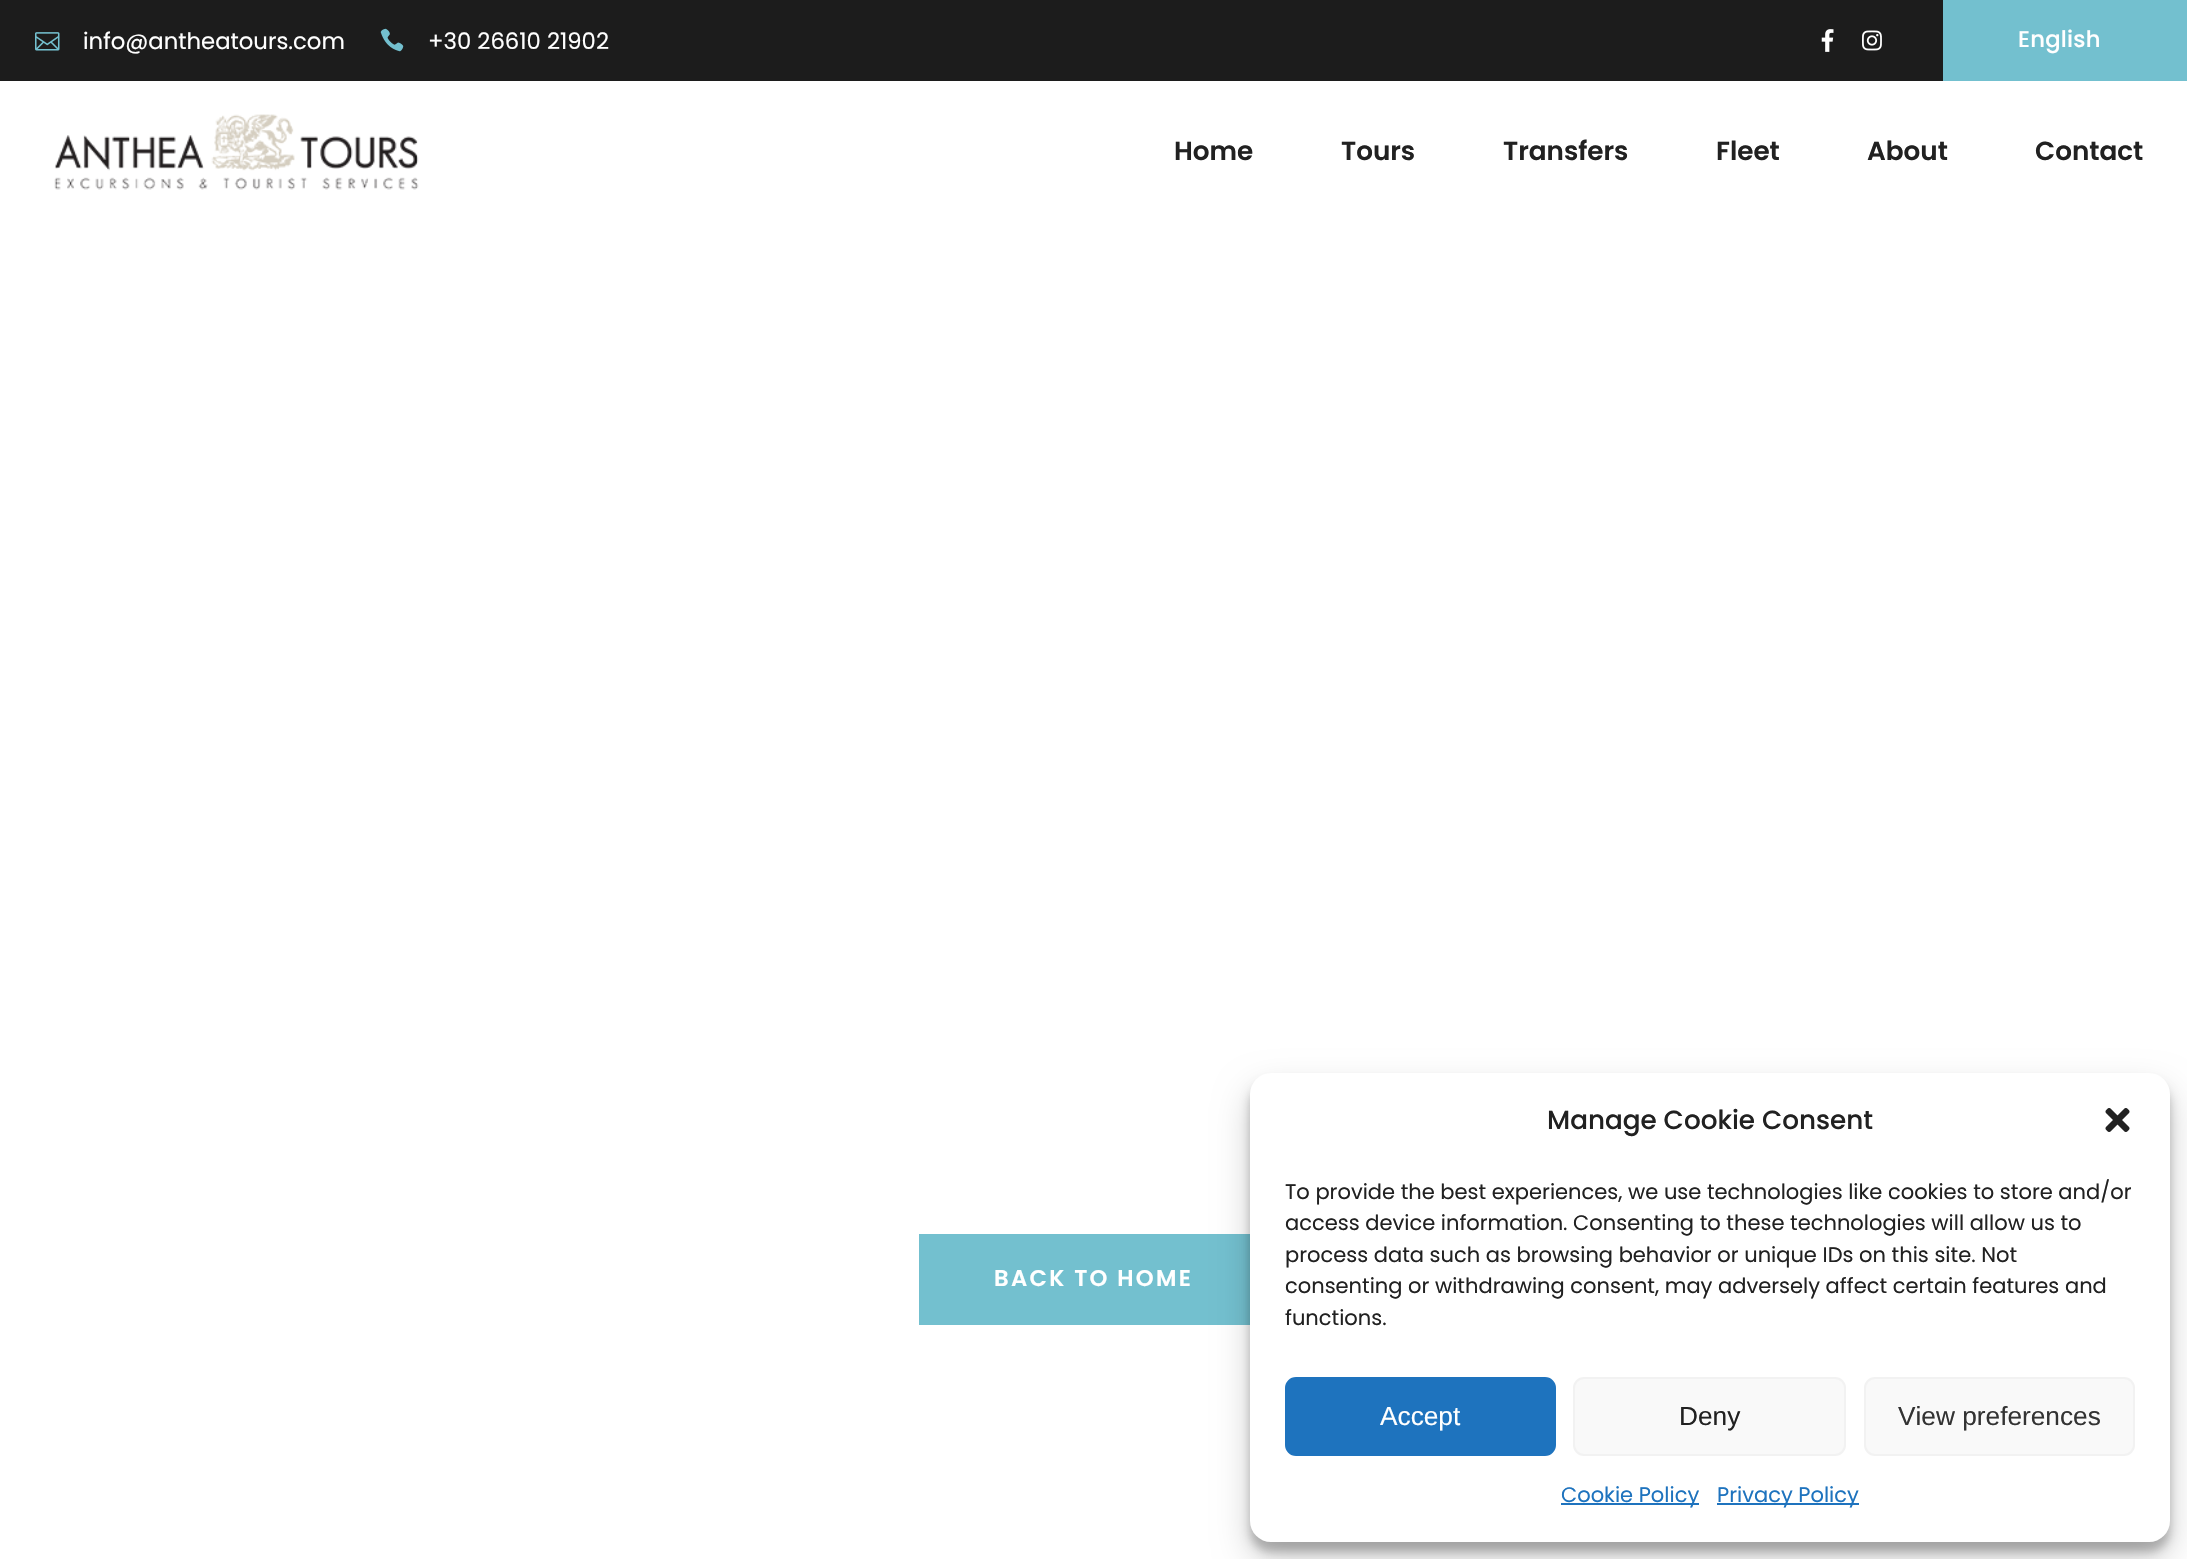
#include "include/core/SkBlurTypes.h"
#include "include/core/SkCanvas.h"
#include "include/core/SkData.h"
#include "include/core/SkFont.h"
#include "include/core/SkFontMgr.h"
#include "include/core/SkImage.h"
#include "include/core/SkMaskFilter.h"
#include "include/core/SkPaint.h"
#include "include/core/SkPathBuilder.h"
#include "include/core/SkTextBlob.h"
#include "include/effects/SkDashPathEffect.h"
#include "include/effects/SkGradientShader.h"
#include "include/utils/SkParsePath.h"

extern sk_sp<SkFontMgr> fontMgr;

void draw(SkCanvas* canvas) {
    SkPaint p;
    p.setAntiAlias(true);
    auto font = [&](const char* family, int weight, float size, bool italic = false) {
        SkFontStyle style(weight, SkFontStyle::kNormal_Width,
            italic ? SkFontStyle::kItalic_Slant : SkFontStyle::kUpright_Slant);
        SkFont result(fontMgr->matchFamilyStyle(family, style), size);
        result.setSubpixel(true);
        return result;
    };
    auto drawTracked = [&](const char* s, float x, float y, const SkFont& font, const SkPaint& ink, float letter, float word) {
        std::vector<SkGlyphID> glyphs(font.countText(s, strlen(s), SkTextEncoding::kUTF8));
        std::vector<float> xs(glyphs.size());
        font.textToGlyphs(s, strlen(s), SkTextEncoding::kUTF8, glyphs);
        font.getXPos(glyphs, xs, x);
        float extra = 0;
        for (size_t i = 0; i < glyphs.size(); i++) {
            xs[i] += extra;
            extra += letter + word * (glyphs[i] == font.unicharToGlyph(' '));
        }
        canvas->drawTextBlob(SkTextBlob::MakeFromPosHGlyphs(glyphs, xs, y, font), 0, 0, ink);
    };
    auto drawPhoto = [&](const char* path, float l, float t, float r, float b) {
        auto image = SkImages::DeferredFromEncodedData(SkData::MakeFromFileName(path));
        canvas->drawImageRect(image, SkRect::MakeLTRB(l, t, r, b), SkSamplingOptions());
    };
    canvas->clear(0xFFFFFFFF);
    p.setColor(0xFF1C1C1C);
    canvas->drawRect(SkRect::MakeLTRB(0, 0, 1943, 81), p);
    drawPhoto("media/1.png", 35, 32, 60, 51);
    auto font1 = font("Poppins", 400, 22.75f);
    p.setColor(0xFFFFFFFF);
    canvas->drawString("info@antheatours.com", 83, 49, font1, p);
    drawPhoto("media/2.png", 380, 28, 404, 52);
    canvas->drawString("+30 26610 21902", 428, 49, font1, p);
    drawPhoto("media/3.png", 1821, 29, 1834, 52);
    drawPhoto("media/4.png", 1862, 30, 1882, 51);
    p.setColor(0xFF73C0CF);
    canvas->drawRect(SkRect::MakeLTRB(1943, 0, 2187, 81), p);
    auto font2 = font("Poppins", 500, 22.75f);
    p.setColor(0xFFFFFFFF);
    drawTracked("English", 2018, 47, font2, p, 0.25f, 0);
    drawPhoto("media/5.png", 54, 114, 419, 190);
    auto font3 = font("Poppins", 600, 26.25f);
    p.setColor(0xFF212121);
    {
        const struct { const char* s; float x, y; } items[] = {
            {"Home", 1174, 160},
            {"Tours", 1341, 160},
            {"Transfers", 1503, 160},
            {"Fleet", 1716, 160},
            {"About", 1867, 160},
            {"Contact", 2035, 160},
        };
        for (auto [s, x, y] : items) {
            canvas->drawString(s, x, y, font3, p);
        }
    }
    p.setColor(0xFF73C0CF);
    canvas->drawRect(SkRect::MakeLTRB(919, 1234, 1250, 1325), p);
    auto font4 = font("Poppins", 600, 22.75f);
    p.setColor(0xFFFFFFFF);
    drawTracked("BACK TO HOME", 994, 1286, font4, p, 2.25f, 0);
    p.setColor(0x3B000000);
    p.setMaskFilter(SkMaskFilter::MakeBlur(kNormal_SkBlurStyle, 5));
    canvas->drawRoundRect(SkRect::MakeLTRB(1250, 1083, 2170, 1552), 21, 21, p);
    p.setMaskFilter(nullptr);
    p.setColor(0x30000000);
    p.setMaskFilter(SkMaskFilter::MakeBlur(kNormal_SkBlurStyle, 17.5f));
    canvas->drawRoundRect(SkRect::MakeLTRB(1250, 1090, 2170, 1559), 21, 21, p);
    p.setMaskFilter(nullptr);
    p.setColor(0xFFFFFFFF);
    canvas->drawRoundRect(SkRect::MakeLTRB(1250, 1073, 2170, 1542), 21, 21, p);
    auto font5 = font("Poppins", 500, 26.25f);
    p.setColor(0xFF212121);
    canvas->drawString("Manage Cookie Consent", 1547, 1129, font5, p);
    drawPhoto("media/6.png", 2105, 1108, 2130, 1132);
    auto font6 = font("Poppins", 400, 21);
    {
        const struct { const char* s; float x, y; } items[] = {
            {"To provide the best experiences, we use technologies like cookies to store and/or", 1285, 1199},
            {"access device information. Consenting to these technologies will allow us to", 1285, 1230},
            {"process data such as browsing behavior or unique IDs on this site. Not", 1285, 1262},
            {"consenting or withdrawing consent, may adversely affect certain features and", 1285, 1293},
            {"functions.", 1285, 1325},
        };
        for (auto [s, x, y] : items) {
            canvas->drawString(s, x, y, font6, p);
        }
    }
    p.setColor(0xFF1E73BE);
    canvas->drawRoundRect(SkRect::MakeLTRB(1286, 1378, 1555, 1455), 10, 10, p);
    p.setStyle(SkPaint::kStroke_Style);
    p.setStrokeWidth(2);
    canvas->drawRoundRect(SkRect::MakeLTRB(1286, 1378, 1555, 1455), 10, 10, p);
    auto font7 = font("Liberation Sans", 400, 26.25f);
    p.setStyle(SkPaint::kFill_Style);
    p.setColor(0xFFFFFFFF);
    canvas->drawString("Accept", 1380, 1425, font7, p);
    p.setColor(0xFFF9F9F9);
    canvas->drawRoundRect(SkRect::MakeLTRB(1574, 1378, 1845, 1455), 10, 10, p);
    p.setStyle(SkPaint::kStroke_Style);
    p.setColor(0xFFF2F2F2);
    canvas->drawRoundRect(SkRect::MakeLTRB(1574, 1378, 1845, 1455), 10, 10, p);
    p.setStyle(SkPaint::kFill_Style);
    p.setColor(0xFF212121);
    canvas->drawString("Deny", 1679, 1425, font7, p);
    p.setColor(0xFFF9F9F9);
    canvas->drawRoundRect(SkRect::MakeLTRB(1865, 1378, 2134, 1455), 10, 10, p);
    p.setStyle(SkPaint::kStroke_Style);
    p.setColor(0xFFF2F2F2);
    canvas->drawRoundRect(SkRect::MakeLTRB(1865, 1378, 2134, 1455), 10, 10, p);
    p.setStyle(SkPaint::kFill_Style);
    p.setColor(0xFF333333);
    canvas->drawString("View preferences", 1898, 1425, font7, p);
    p.setColor(0xFF1E73BE);
    canvas->drawRect(SkRect::MakeLTRB(1561, 1503, 1699, 1505), p);
    canvas->drawString("Cookie Policy", 1561, 1502, font6, p);
    canvas->drawRect(SkRect::MakeLTRB(1717, 1503, 1859, 1505), p);
    canvas->drawString("Privacy Policy", 1717, 1502, font6, p);
}
